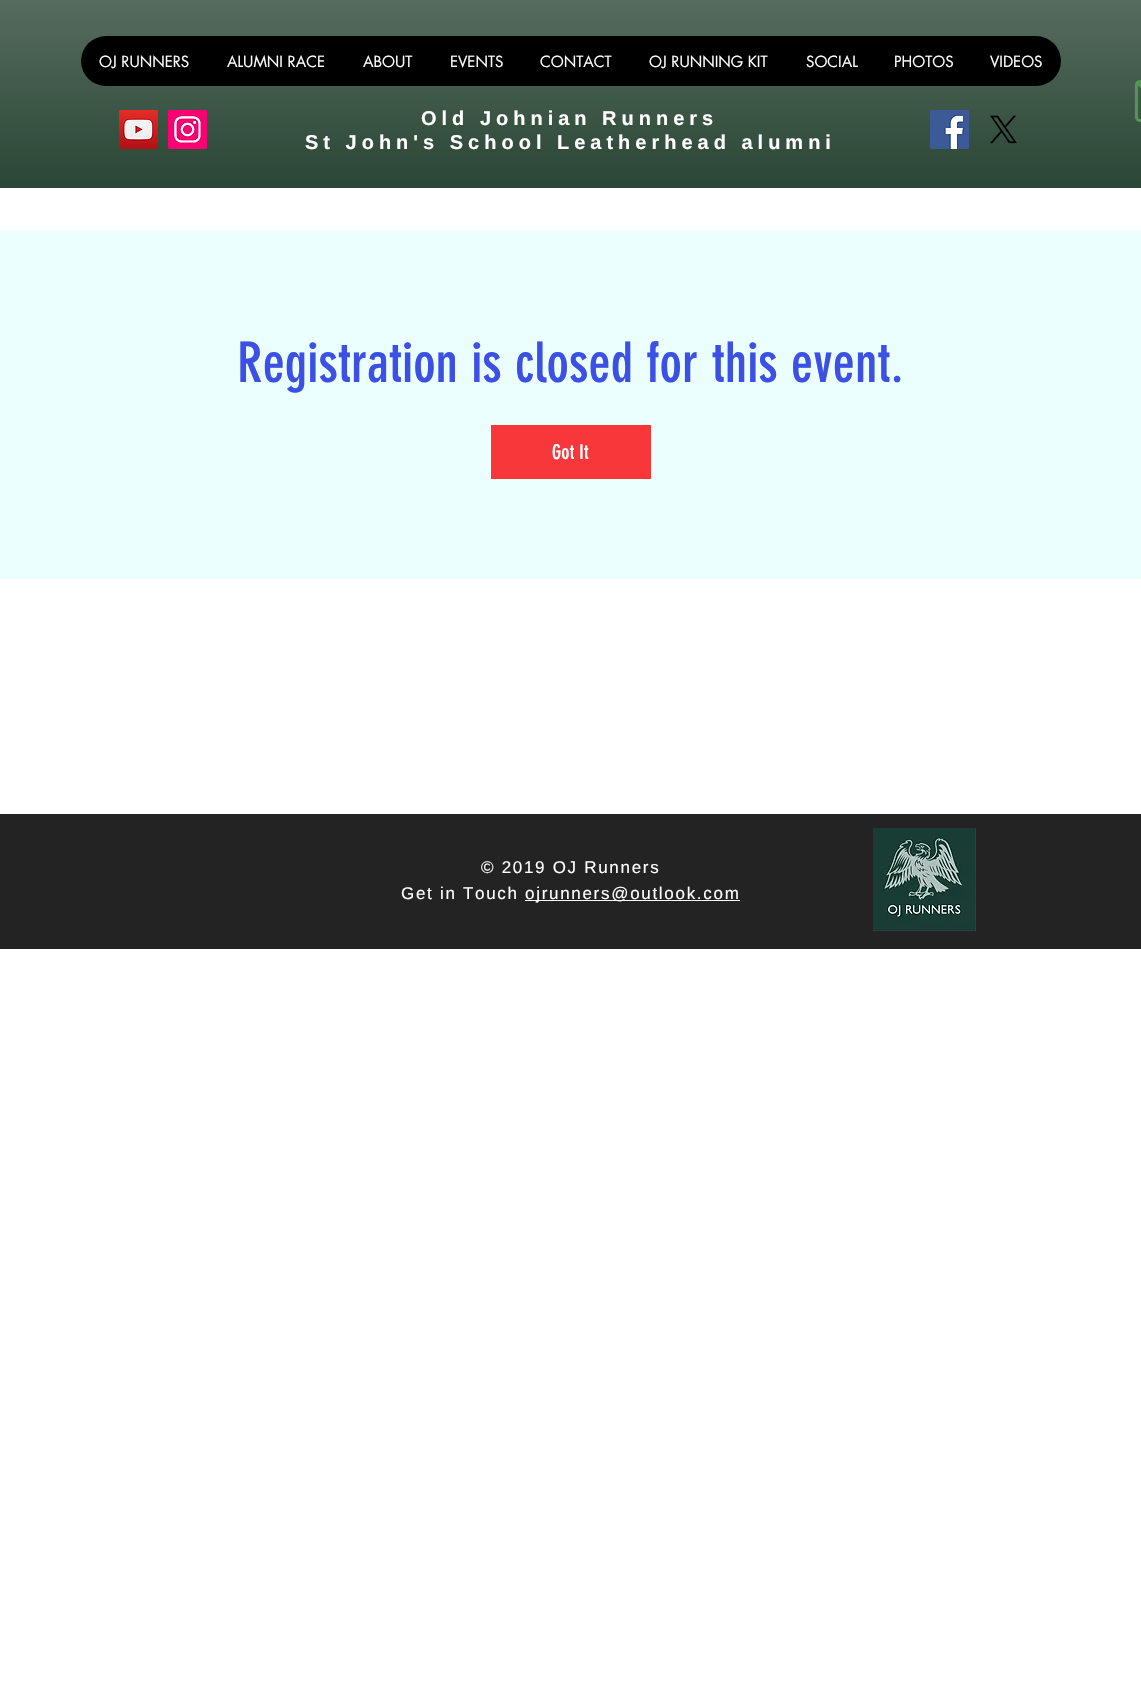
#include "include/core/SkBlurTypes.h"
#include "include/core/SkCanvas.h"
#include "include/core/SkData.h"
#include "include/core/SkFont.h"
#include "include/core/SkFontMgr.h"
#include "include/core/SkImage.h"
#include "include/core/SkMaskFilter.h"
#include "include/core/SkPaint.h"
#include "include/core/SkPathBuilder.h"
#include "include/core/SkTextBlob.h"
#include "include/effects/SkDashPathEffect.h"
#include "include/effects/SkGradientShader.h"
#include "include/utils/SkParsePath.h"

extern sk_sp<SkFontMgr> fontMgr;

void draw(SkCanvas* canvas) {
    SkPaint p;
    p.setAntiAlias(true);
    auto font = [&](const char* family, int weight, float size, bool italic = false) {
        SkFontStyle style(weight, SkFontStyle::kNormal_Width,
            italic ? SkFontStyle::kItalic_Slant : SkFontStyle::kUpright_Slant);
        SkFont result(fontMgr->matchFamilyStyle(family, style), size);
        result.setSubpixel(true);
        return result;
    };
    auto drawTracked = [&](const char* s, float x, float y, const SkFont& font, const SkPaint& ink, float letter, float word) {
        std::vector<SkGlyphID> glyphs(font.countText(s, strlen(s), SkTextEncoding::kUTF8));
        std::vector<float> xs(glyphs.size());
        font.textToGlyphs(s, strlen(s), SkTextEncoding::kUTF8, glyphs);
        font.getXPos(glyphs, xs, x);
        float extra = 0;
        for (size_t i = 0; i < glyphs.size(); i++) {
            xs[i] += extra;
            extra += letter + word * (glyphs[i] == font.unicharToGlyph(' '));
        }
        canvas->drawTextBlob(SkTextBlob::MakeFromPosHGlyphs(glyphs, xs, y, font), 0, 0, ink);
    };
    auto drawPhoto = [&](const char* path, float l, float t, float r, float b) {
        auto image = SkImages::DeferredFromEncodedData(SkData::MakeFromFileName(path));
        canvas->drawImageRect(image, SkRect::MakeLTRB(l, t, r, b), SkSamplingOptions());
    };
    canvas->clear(0xFFFFFFFF);
    p.setColor(0xFF1A3826);
    canvas->drawRect(SkRect::MakeLTRB(0, 0, 1141, 188), p);
    drawPhoto("media/1.png", 0, 0, 1141, 188);
    p.setColor(0xFF000000);
    canvas->drawRoundRect(SkRect::MakeLTRB(81, 36, 1061, 86), 25, 25, p);
    auto font1 = font("futura", 400, 15);
    p.setColor(0xFFFFFFFF);
    {
        const struct { const char* s; float x, y; } items[] = {
            {"OJ RUNNERS", 99, 67},
            {"ALUMNI RACE", 227, 67},
            {"ABOUT", 363, 67},
            {"EVENTS", 450, 67},
            {"CONTACT", 540, 67},
            {"OJ RUNNING KIT", 649, 67},
            {"SOCIAL", 806, 67},
            {"PHOTOS", 894, 67},
            {"VIDEOS", 990, 67},
        };
        for (auto [s, x, y] : items) {
            canvas->drawString(s, x, y, font1, p);
        }
    }
    drawPhoto("media/2.png", 1134, 80, 1141, 122);
    drawPhoto("media/3.png", 119, 110, 158, 149);
    drawPhoto("media/4.png", 168, 110, 207, 149);
    auto font2 = font("Liberation Sans", 700, 20);
    drawTracked("Old Johnian Runners", 421, 125, font2, p, 5, 0);
    drawTracked("St John's School Leatherhead alumni", 305, 149, font2, p, 5, 0);
    drawPhoto("media/5.png", 930, 110, 969, 149);
    drawPhoto("media/6.png", 990, 115, 1017, 144);
    p.setColor(0xFFEBFFFE);
    canvas->drawRect(SkRect::MakeLTRB(0, 231, 1141, 579), p);
    auto font3 = font("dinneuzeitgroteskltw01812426", 400, 55);
    p.setColor(0xFF3C50E6);
    canvas->drawString("Registration is closed for this event.", 237, 382, font3, p);
    p.setColor(0xFFF7373A);
    canvas->drawRect(SkRect::MakeLTRB(491, 425, 651, 479), p);
    auto font4 = font("dinneuzeitgroteskltw01812426", 400, 20);
    p.setColor(0xFFFFFFFF);
    canvas->drawString("Got It", 552, 459, font4, p);
    p.setColor(0xFF232323);
    canvas->drawRect(SkRect::MakeLTRB(0, 814, 1141, 949), p);
    auto font5 = font("Liberation Sans", 400, 17);
    p.setColor(0xFFFFFFFF);
    drawTracked("© 2019 OJ Runners", 481, 873, font5, p, 1.7f, 0);
    drawTracked("Get in Touch", 401, 899, font5, p, 1.7f, 0);
    canvas->drawRect(SkRect::MakeLTRB(525, 900, 740, 901), p);
    drawTracked("ojrunners@outlook.com", 525, 899, font5, p, 1.7f, 0);
    drawPhoto("media/7.png", 873, 828, 976, 931);
}
